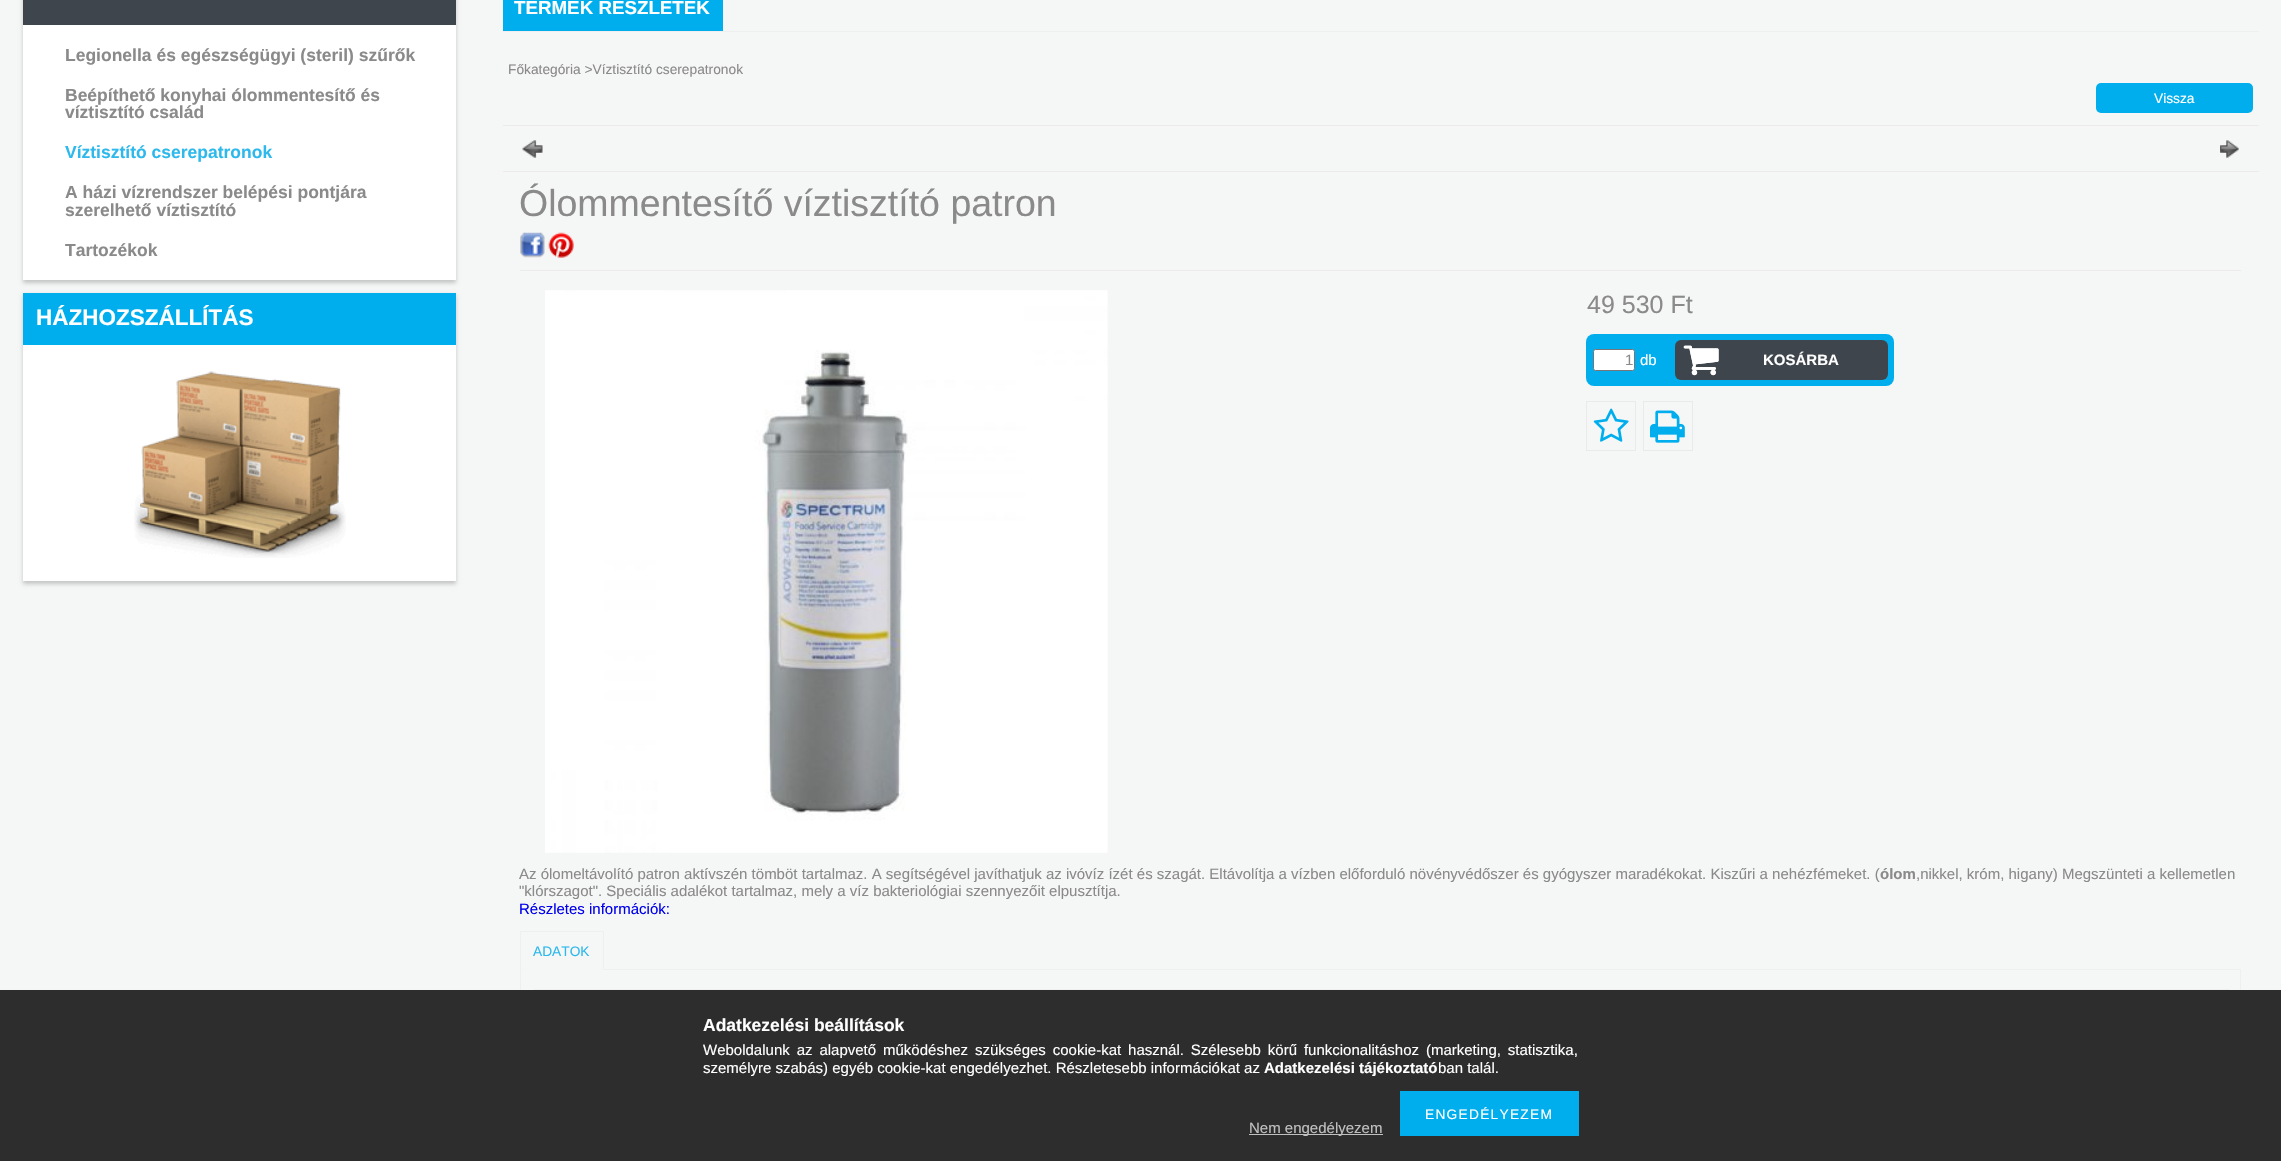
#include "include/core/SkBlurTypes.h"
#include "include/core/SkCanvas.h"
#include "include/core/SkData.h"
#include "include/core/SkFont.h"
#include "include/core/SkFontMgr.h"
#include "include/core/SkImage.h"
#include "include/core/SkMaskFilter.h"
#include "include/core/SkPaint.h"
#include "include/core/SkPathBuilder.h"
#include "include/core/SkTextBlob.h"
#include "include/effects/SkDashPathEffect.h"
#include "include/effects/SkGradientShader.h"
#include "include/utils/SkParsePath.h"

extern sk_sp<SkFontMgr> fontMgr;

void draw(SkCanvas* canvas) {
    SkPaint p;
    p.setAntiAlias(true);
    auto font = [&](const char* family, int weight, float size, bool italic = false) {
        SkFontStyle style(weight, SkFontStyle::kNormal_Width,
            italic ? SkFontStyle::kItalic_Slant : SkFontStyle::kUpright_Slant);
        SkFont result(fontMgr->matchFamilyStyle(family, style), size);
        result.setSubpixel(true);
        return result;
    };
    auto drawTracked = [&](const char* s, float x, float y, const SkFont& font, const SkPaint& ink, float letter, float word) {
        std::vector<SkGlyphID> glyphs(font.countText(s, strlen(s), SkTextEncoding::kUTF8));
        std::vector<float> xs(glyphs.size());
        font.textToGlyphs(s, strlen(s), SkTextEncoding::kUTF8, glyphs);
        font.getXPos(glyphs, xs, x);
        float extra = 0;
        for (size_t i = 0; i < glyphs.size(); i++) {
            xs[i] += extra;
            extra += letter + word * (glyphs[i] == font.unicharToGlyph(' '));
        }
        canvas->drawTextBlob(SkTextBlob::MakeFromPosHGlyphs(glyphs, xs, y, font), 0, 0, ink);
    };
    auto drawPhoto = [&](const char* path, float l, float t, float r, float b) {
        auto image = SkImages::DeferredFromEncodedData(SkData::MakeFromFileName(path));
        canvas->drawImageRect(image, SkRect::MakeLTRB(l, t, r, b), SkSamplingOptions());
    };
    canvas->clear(0xFFF5F6F6);
    p.setColor(0x33000000);
    p.setMaskFilter(SkMaskFilter::MakeBlur(kNormal_SkBlurStyle, 2));
    canvas->drawRect(SkRect::MakeLTRB(23, -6, 456, 283), p);
    p.setMaskFilter(nullptr);
    p.setColor(0xFF3E454C);
    canvas->drawRect(SkRect::MakeLTRB(23, 0, 456, 25), p);
    p.setColor(0xFFFFFFFF);
    canvas->drawRect(SkRect::MakeLTRB(23, 25, 456, 280), p);
    auto font1 = font("Liberation Sans", 700, 17.5f);
    p.setColor(0xFF8B8A8A);
    {
        const struct { const char* s; float x, y; } items[] = {
            {"Legionella és egészségügyi (steril) szűrők", 65, 61},
            {"Beépíthető konyhai ólommentesítő és", 65, 101},
            {"víztisztító család", 65, 118},
        };
        for (auto [s, x, y] : items) {
            canvas->drawString(s, x, y, font1, p);
        }
    }
    p.setColor(0xFF2DB9EC);
    canvas->drawString("Víztisztító cserepatronok", 65, 158, font1, p);
    p.setColor(0xFF8B8A8A);
    {
        const struct { const char* s; float x, y; } items[] = {
            {"A házi vízrendszer belépési pontjára", 65, 198},
            {"szerelhető víztisztító", 65, 216},
            {"Tartozékok", 65, 256},
        };
        for (auto [s, x, y] : items) {
            canvas->drawString(s, x, y, font1, p);
        }
    }
    p.setColor(0x33000000);
    p.setMaskFilter(SkMaskFilter::MakeBlur(kNormal_SkBlurStyle, 2));
    canvas->drawRect(SkRect::MakeLTRB(23, 295, 456, 584), p);
    p.setMaskFilter(nullptr);
    p.setColor(0xFF00AEED);
    canvas->drawRect(SkRect::MakeLTRB(23, 293, 456, 345), p);
    auto font2 = font("Liberation Sans", 700, 22.5f);
    p.setColor(0xFFFFFFFF);
    canvas->drawString("HÁZHOZSZÁLLÍTÁS", 36, 325, font2, p);
    canvas->drawRect(SkRect::MakeLTRB(23, 345, 456, 581), p);
    drawPhoto("media/1.png", 134, 371, 346, 558);
    p.setColor(0xFFEFEFEF);
    canvas->drawRect(SkRect::MakeLTRB(503, 31, 2259, 32), p);
    p.setColor(0xFF00AEED);
    canvas->drawRect(SkRect::MakeLTRB(503, 0, 723, 31), p);
    auto font3 = font("Liberation Sans", 700, 18.75f);
    p.setColor(0xFFFFFFFF);
    canvas->drawString("TERMÉK RÉSZLETEK", 514, 14, font3, p);
    auto font4 = font("Liberation Sans", 400, 13.75f);
    p.setColor(0xFF8B8A8A);
    canvas->drawString("Főkategória >Víztisztító cserepatronok", 508, 74, font4, p);
    p.setColor(0xFF00AEED);
    canvas->drawRoundRect(SkRect::MakeLTRB(2096, 83, 2253, 113), 5, 5, p);
    p.setColor(0xFFFFFFFF);
    canvas->drawString("Vissza", 2154, 103, font4, p);
    p.setColor(0xFFECEAEA);
    canvas->drawRect(SkRect::MakeLTRB(503, 125, 2259, 126), p);
    drawPhoto("media/2.png", 522, 140, 543, 158);
    drawPhoto("media/3.png", 2220, 140, 2239, 158);
    canvas->drawRect(SkRect::MakeLTRB(503, 171, 2259, 172), p);
    canvas->drawRect(SkRect::MakeLTRB(520, 270, 2241, 271), p);
    auto font5 = font("Liberation Sans", 400, 37.5f);
    p.setColor(0xFF8B8A8A);
    canvas->drawString("Ólommentesítő víztisztító patron", 519, 216, font5, p);
    drawPhoto("media/4.png", 520, 232, 545, 258);
    drawPhoto("media/5.png", 548, 232, 574, 258);
    drawPhoto("media/6.png", 545, 290, 1108, 853);
    auto font6 = font("Liberation Sans", 400, 25);
    canvas->drawString("49 530 Ft", 1587, 313, font6, p);
    p.setColor(0xFF00AEED);
    canvas->drawRoundRect(SkRect::MakeLTRB(1586, 334, 1894, 386), 8, 8, p);
    p.setColor(0xFFFFFFFF);
    canvas->drawRoundRect(SkRect::MakeLTRB(1593.5f, 349.5f, 1634.5f, 370.5f), 2, 2, p);
    p.setStyle(SkPaint::kStroke_Style);
    p.setStrokeWidth(1);
    p.setColor(0xFF767676);
    canvas->drawRoundRect(SkRect::MakeLTRB(1593.5f, 349.5f, 1634.5f, 370.5f), 2, 2, p);
    auto font7 = font("Liberation Sans", 400, 15);
    p.setStyle(SkPaint::kFill_Style);
    p.setColor(0xFF8B8A8A);
    canvas->drawString("1", 1625, 365, font7, p);
    p.setColor(0xFFFFFFFF);
    canvas->drawString("db", 1640, 365, font7, p);
    p.setColor(0xFF3E454C);
    canvas->drawRoundRect(SkRect::MakeLTRB(1675, 340, 1888, 380), 6, 6, p);
    drawPhoto("media/7.png", 1683, 345, 1719, 376);
    drawPhoto("media/8.png", 1683, 345, 1719, 376);
    auto font8 = font("Liberation Sans", 700, 15);
    p.setColor(0xFFFFFFFF);
    canvas->drawString("KOSÁRBA", 1763, 365, font8, p);
    p.setStyle(SkPaint::kStroke_Style);
    p.setColor(0xFFEAEAEA);
    canvas->drawRect(SkRect::MakeLTRB(1586.5f, 401.5f, 1635.5f, 450.5f), p);
    drawPhoto("media/9.png", 1593, 408, 1629, 442);
    canvas->drawRect(SkRect::MakeLTRB(1643.5f, 401.5f, 1692.5f, 450.5f), p);
    drawPhoto("media/10.png", 1650, 410, 1685, 443);
    p.setStyle(SkPaint::kFill_Style);
    p.setColor(0xFF8B8A8A);
    canvas->drawString("Az ólomeltávolító patron aktívszén tömböt tartalmaz. A segítségével javíthatjuk az ivóvíz ízét és szagát. Eltávolítja a vízben előforduló növényvédőszer és gyógyszer maradékokat. Kiszűri a nehézfémeket. (", 519, 879, font7, p);
    canvas->drawString("ólom", 1880, 879, font8, p);
    canvas->drawString(",nikkel, króm, higany) Megszünteti a kellemetlen", 1916, 879, font7, p);
    canvas->drawString("\"klórszagot\". Speciális adalékot tartalmaz, mely a víz bakteriológiai szennyezőit elpusztítja.", 519, 896, font7, p);
    p.setColor(0xFF0000EE);
    canvas->drawString("Részletes információk:", 519, 914, font7, p);
    p.setColor(0xFFEFEFEF);
    canvas->drawRect(SkRect::MakeLTRB(520, 931, 604, 932), p);
    p.setStyle(SkPaint::kStroke_Style);
    canvas->drawRect(SkRect::MakeLTRB(520.5f, 969.5f, 2240.5f, 1045.5f), p);
    p.setStyle(SkPaint::kFill_Style);
    {
        const struct { float l, t, r, b; SkColor color; } items[] = {
            {603, 931, 604, 970, 0xFFEFEFEF},
            {520, 969, 604, 970, 0xFFF5F5F5},
            {520, 931, 521, 970, 0xFFEFEFEF},
        };
        for (auto [l, t, r, b, color] : items) {
            p.setColor(color);
            canvas->drawRect(SkRect::MakeLTRB(l, t, r, b), p);
        }
    }
    p.setColor(0xFF2DB9EC);
    canvas->drawString("ADATOK", 533, 956, font4, p);
    p.setStyle(SkPaint::kStroke_Style);
    p.setColor(0xFFEFEFEF);
    canvas->drawRect(SkRect::MakeLTRB(534.5f, 989.5f, 2229.5f, 1025.5f), p);
    p.setStyle(SkPaint::kFill_Style);
    p.setColor(0xFFEDEDED);
    canvas->drawRect(SkRect::MakeLTRB(535, 990, 1205, 1025), p);
    p.setColor(0xF2222222);
    canvas->drawRect(SkRect::MakeLTRB(0, 990, 2281, 1161), p);
    p.setColor(0xFFFFFFFF);
    canvas->drawString("Adatkezelési beállítások", 703, 1031, font1, p);
    drawTracked("Weboldalunk az alapvető működéshez szükséges cookie-kat használ. Szélesebb körű funkcionalitáshoz (marketing, statisztika,", 703, 1055, font7, p, 0, 2.75f);
    canvas->drawString("személyre szabás) egyéb cookie-kat engedélyezhet. Részletesebb információkat az", 703, 1073, font7, p);
    canvas->drawString("Adatkezelési tájékoztató", 1264, 1073, font8, p);
    canvas->drawString("ban talál.", 1438, 1073, font7, p);
    p.setColor(0xFF00AEED);
    canvas->drawRect(SkRect::MakeLTRB(1400, 1091, 1579, 1136), p);
    p.setColor(0xFFFFFFFF);
    drawTracked("ENGEDÉLYEZEM", 1425, 1119, font4, p, 1.25f, 0);
    p.setColor(0xFFC0C0C0);
    canvas->drawRect(SkRect::MakeLTRB(1249, 1134, 1383, 1135), p);
    canvas->drawString("Nem engedélyezem", 1249, 1133, font7, p);
}
